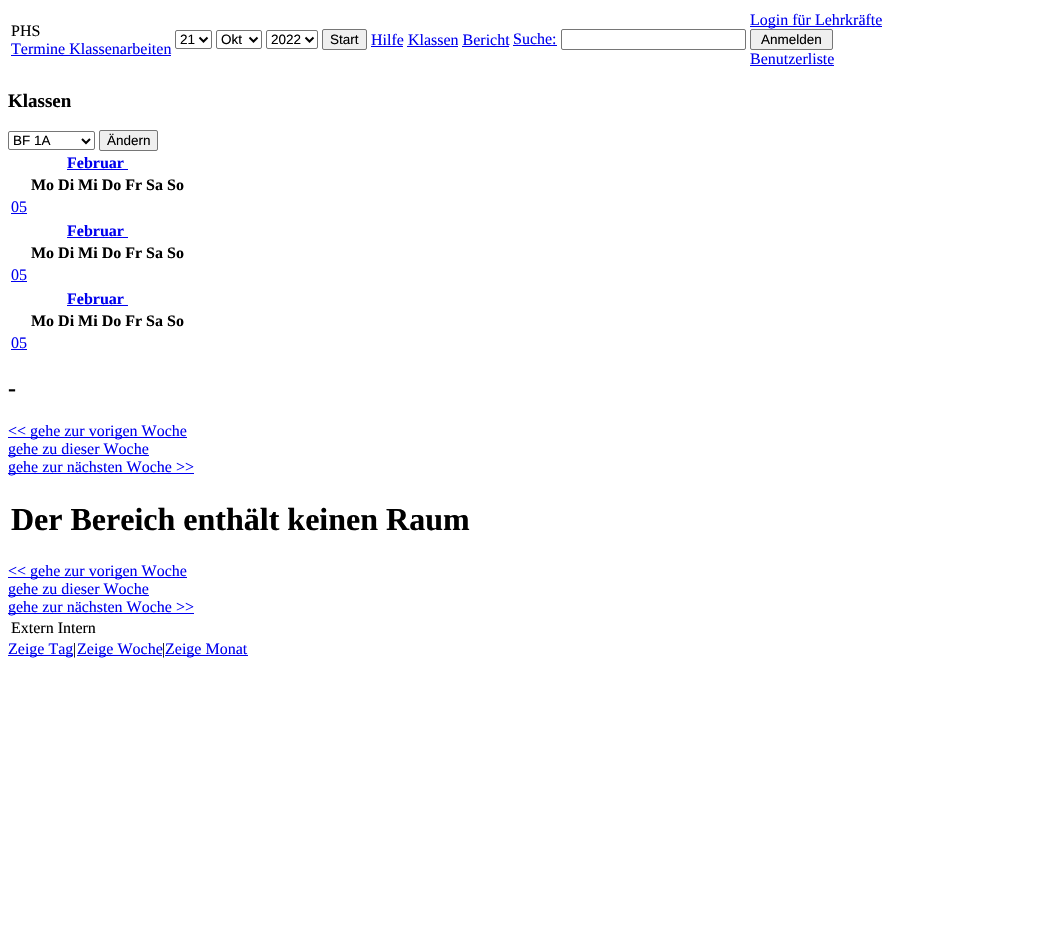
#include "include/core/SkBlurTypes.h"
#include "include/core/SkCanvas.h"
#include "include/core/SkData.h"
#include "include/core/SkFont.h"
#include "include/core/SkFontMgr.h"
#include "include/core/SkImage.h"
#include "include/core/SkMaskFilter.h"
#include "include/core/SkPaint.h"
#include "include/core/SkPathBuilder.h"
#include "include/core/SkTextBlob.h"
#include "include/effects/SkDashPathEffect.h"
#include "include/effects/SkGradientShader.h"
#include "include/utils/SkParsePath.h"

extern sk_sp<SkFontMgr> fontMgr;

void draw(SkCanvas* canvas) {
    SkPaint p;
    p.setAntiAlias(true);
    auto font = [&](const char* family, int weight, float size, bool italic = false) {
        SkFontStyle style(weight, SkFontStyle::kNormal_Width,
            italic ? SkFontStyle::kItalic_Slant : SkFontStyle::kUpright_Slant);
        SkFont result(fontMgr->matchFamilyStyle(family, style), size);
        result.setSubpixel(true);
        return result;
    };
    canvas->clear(0xFFFFFFFF);
    auto font1 = font("Liberation Serif", 400, 16);
    p.setColor(0xFF000000);
    canvas->drawString("PHS", 11, 36, font1, p);
    p.setColor(0xFF0000EE);
    canvas->drawString("Termine Klassenarbeiten", 11, 54, font1, p);
    canvas->drawRect(SkRect::MakeLTRB(11, 55, 171, 56), p);
    p.setStyle(SkPaint::kStroke_Style);
    p.setStrokeWidth(1);
    p.setColor(0xFF767676);
    canvas->drawRoundRect(SkRect::MakeLTRB(175.5f, 30.5f, 211.5f, 48.5f), 1.5f, 1.5f, p);
    p.setStrokeWidth(2);
    p.setColor(0xFF000000);
    canvas->drawPath(SkPathBuilder().moveTo(199.5f, 37.5f).lineTo(203.5f, 41.5f).lineTo(207.5f, 37.5f).detach(), p);
    auto font2 = font("Liberation Sans", 400, 13.5f);
    p.setStyle(SkPaint::kFill_Style);
    canvas->drawString("21", 180, 44, font2, p);
    p.setStyle(SkPaint::kStroke_Style);
    p.setStrokeWidth(1);
    p.setColor(0xFF767676);
    canvas->drawRoundRect(SkRect::MakeLTRB(216.5f, 30.5f, 261.5f, 48.5f), 1.5f, 1.5f, p);
    p.setStrokeWidth(2);
    p.setColor(0xFF000000);
    canvas->drawPath(SkPathBuilder().moveTo(249.5f, 37.5f).lineTo(253.5f, 41.5f).lineTo(257.5f, 37.5f).detach(), p);
    p.setStyle(SkPaint::kFill_Style);
    canvas->drawString("Okt", 221, 44, font2, p);
    p.setStyle(SkPaint::kStroke_Style);
    p.setStrokeWidth(1);
    p.setColor(0xFF767676);
    canvas->drawRoundRect(SkRect::MakeLTRB(266.5f, 30.5f, 317.5f, 48.5f), 1.5f, 1.5f, p);
    p.setStrokeWidth(2);
    p.setColor(0xFF000000);
    canvas->drawPath(SkPathBuilder().moveTo(305.5f, 37.5f).lineTo(309.5f, 41.5f).lineTo(313.5f, 37.5f).detach(), p);
    p.setStyle(SkPaint::kFill_Style);
    canvas->drawString("2022", 271, 44, font2, p);
    p.setColor(0xFFEFEFEF);
    canvas->drawRoundRect(SkRect::MakeLTRB(322.5f, 29.5f, 366.5f, 49.5f), 1.5f, 1.5f, p);
    p.setStyle(SkPaint::kStroke_Style);
    p.setStrokeWidth(1);
    p.setColor(0xFF767676);
    canvas->drawRoundRect(SkRect::MakeLTRB(322.5f, 29.5f, 366.5f, 49.5f), 1.5f, 1.5f, p);
    p.setStyle(SkPaint::kFill_Style);
    p.setColor(0xFF000000);
    canvas->drawString("Start", 330, 44, font2, p);
    p.setColor(0xFF0000EE);
    canvas->drawString("Hilfe Klassen Bericht", 371, 45, font1, p);
    canvas->drawRect(SkRect::MakeLTRB(371, 46, 403, 47), p);
    canvas->drawString("Suche:", 513, 44, font1, p);
    canvas->drawRect(SkRect::MakeLTRB(513, 45, 557, 46), p);
    p.setStyle(SkPaint::kStroke_Style);
    p.setColor(0xFF767676);
    canvas->drawRoundRect(SkRect::MakeLTRB(561.5f, 29.5f, 745.5f, 49.5f), 1.5f, 1.5f, p);
    p.setStyle(SkPaint::kFill_Style);
    p.setColor(0xFF0000EE);
    canvas->drawRect(SkRect::MakeLTRB(750, 26, 882, 27), p);
    canvas->drawString("Login für Lehrkräfte", 750, 25, font1, p);
    p.setColor(0xFFEFEFEF);
    canvas->drawRoundRect(SkRect::MakeLTRB(750.5f, 29.5f, 832.5f, 49.5f), 1.5f, 1.5f, p);
    p.setStyle(SkPaint::kStroke_Style);
    p.setColor(0xFF767676);
    canvas->drawRoundRect(SkRect::MakeLTRB(750.5f, 29.5f, 832.5f, 49.5f), 1.5f, 1.5f, p);
    p.setStyle(SkPaint::kFill_Style);
    p.setColor(0xFF000000);
    canvas->drawString("Anmelden", 761, 44, font2, p);
    p.setColor(0xFF0000EE);
    canvas->drawString("Benutzerliste", 750, 64, font1, p);
    {
        const struct { float l, t, r, b; SkColor color; } items[] = {
            {750, 65, 834, 66, 0xFF0000EE},
            {407, 46, 458, 47, 0xFF0000EE},
            {462, 46, 509, 47, 0xFF0000EE},
        };
        for (auto [l, t, r, b, color] : items) {
            p.setColor(color);
            canvas->drawRect(SkRect::MakeLTRB(l, t, r, b), p);
        }
    }
    auto font3 = font("Liberation Serif", 700, 19);
    p.setColor(0xFF000000);
    canvas->drawString("Klassen", 8, 107, font3, p);
    p.setStyle(SkPaint::kStroke_Style);
    p.setColor(0xFF767676);
    canvas->drawRoundRect(SkRect::MakeLTRB(8.5f, 131.5f, 94.5f, 149.5f), 1.5f, 1.5f, p);
    p.setStrokeWidth(2);
    p.setColor(0xFF000000);
    canvas->drawPath(SkPathBuilder().moveTo(82, 139).lineTo(86, 143).lineTo(90, 139).detach(), p);
    p.setStyle(SkPaint::kFill_Style);
    canvas->drawString("BF 1A", 13, 145, font2, p);
    p.setColor(0xFFEFEFEF);
    canvas->drawRoundRect(SkRect::MakeLTRB(99.5f, 130.5f, 157.5f, 150.5f), 1.5f, 1.5f, p);
    p.setStyle(SkPaint::kStroke_Style);
    p.setStrokeWidth(1);
    p.setColor(0xFF767676);
    canvas->drawRoundRect(SkRect::MakeLTRB(99.5f, 130.5f, 157.5f, 150.5f), 1.5f, 1.5f, p);
    p.setStyle(SkPaint::kFill_Style);
    p.setColor(0xFF000000);
    canvas->drawString("Ändern", 107, 145, font2, p);
    auto font4 = font("Liberation Serif", 700, 16);
    p.setColor(0xFF0000EE);
    canvas->drawString("Februar", 67, 168, font4, p);
    canvas->drawRect(SkRect::MakeLTRB(67, 169, 128, 170), p);
    p.setColor(0xFF000000);
    canvas->drawString("Mo Di Mi Do Fr Sa So", 31, 190, font4, p);
    p.setColor(0xFF0000EE);
    canvas->drawString("05", 11, 212, font1, p);
    canvas->drawRect(SkRect::MakeLTRB(11, 213, 27, 214), p);
    canvas->drawString("Februar", 67, 236, font4, p);
    canvas->drawRect(SkRect::MakeLTRB(67, 237, 128, 238), p);
    p.setColor(0xFF000000);
    canvas->drawString("Mo Di Mi Do Fr Sa So", 31, 258, font4, p);
    p.setColor(0xFF0000EE);
    canvas->drawString("05", 11, 280, font1, p);
    canvas->drawRect(SkRect::MakeLTRB(11, 281, 27, 282), p);
    canvas->drawString("Februar", 67, 304, font4, p);
    canvas->drawRect(SkRect::MakeLTRB(67, 305, 128, 306), p);
    p.setColor(0xFF000000);
    canvas->drawString("Mo Di Mi Do Fr Sa So", 31, 326, font4, p);
    p.setColor(0xFF0000EE);
    canvas->drawString("05", 11, 348, font1, p);
    canvas->drawRect(SkRect::MakeLTRB(11, 349, 27, 350), p);
    auto font5 = font("Liberation Serif", 700, 24);
    p.setColor(0xFF000000);
    canvas->drawString("-", 8, 396, font5, p);
    p.setColor(0xFF0000EE);
    canvas->drawRect(SkRect::MakeLTRB(8, 437, 187, 438), p);
    canvas->drawString("<< gehe zur vorigen Woche", 8, 436, font1, p);
    canvas->drawRect(SkRect::MakeLTRB(8, 455, 149, 456), p);
    canvas->drawString("gehe zu dieser Woche", 8, 454, font1, p);
    canvas->drawRect(SkRect::MakeLTRB(8, 473, 194, 474), p);
    canvas->drawString("gehe zur nächsten Woche >>", 8, 472, font1, p);
    auto font6 = font("Liberation Serif", 700, 32);
    p.setColor(0xFF000000);
    canvas->drawString("Der Bereich enthält keinen Raum", 11, 530, font6, p);
    p.setColor(0xFF0000EE);
    canvas->drawRect(SkRect::MakeLTRB(8, 577, 187, 578), p);
    canvas->drawString("<< gehe zur vorigen Woche", 8, 576, font1, p);
    canvas->drawRect(SkRect::MakeLTRB(8, 595, 149, 596), p);
    canvas->drawString("gehe zu dieser Woche", 8, 594, font1, p);
    canvas->drawRect(SkRect::MakeLTRB(8, 613, 194, 614), p);
    canvas->drawString("gehe zur nächsten Woche >>", 8, 612, font1, p);
    p.setColor(0xFF000000);
    canvas->drawString("Extern Intern", 11, 633, font1, p);
    p.setColor(0xFF0000EE);
    canvas->drawRect(SkRect::MakeLTRB(8, 655, 73, 656), p);
    canvas->drawString("Zeige Tag", 8, 654, font1, p);
    p.setColor(0xFF000000);
    canvas->drawString("|", 73, 654, font1, p);
    p.setColor(0xFF0000EE);
    canvas->drawRect(SkRect::MakeLTRB(77, 655, 162, 656), p);
    canvas->drawString("Zeige Woche", 77, 654, font1, p);
    p.setColor(0xFF000000);
    canvas->drawString("|", 162, 654, font1, p);
    p.setColor(0xFF0000EE);
    canvas->drawRect(SkRect::MakeLTRB(165, 655, 248, 656), p);
    canvas->drawString("Zeige Monat", 165, 654, font1, p);
}
